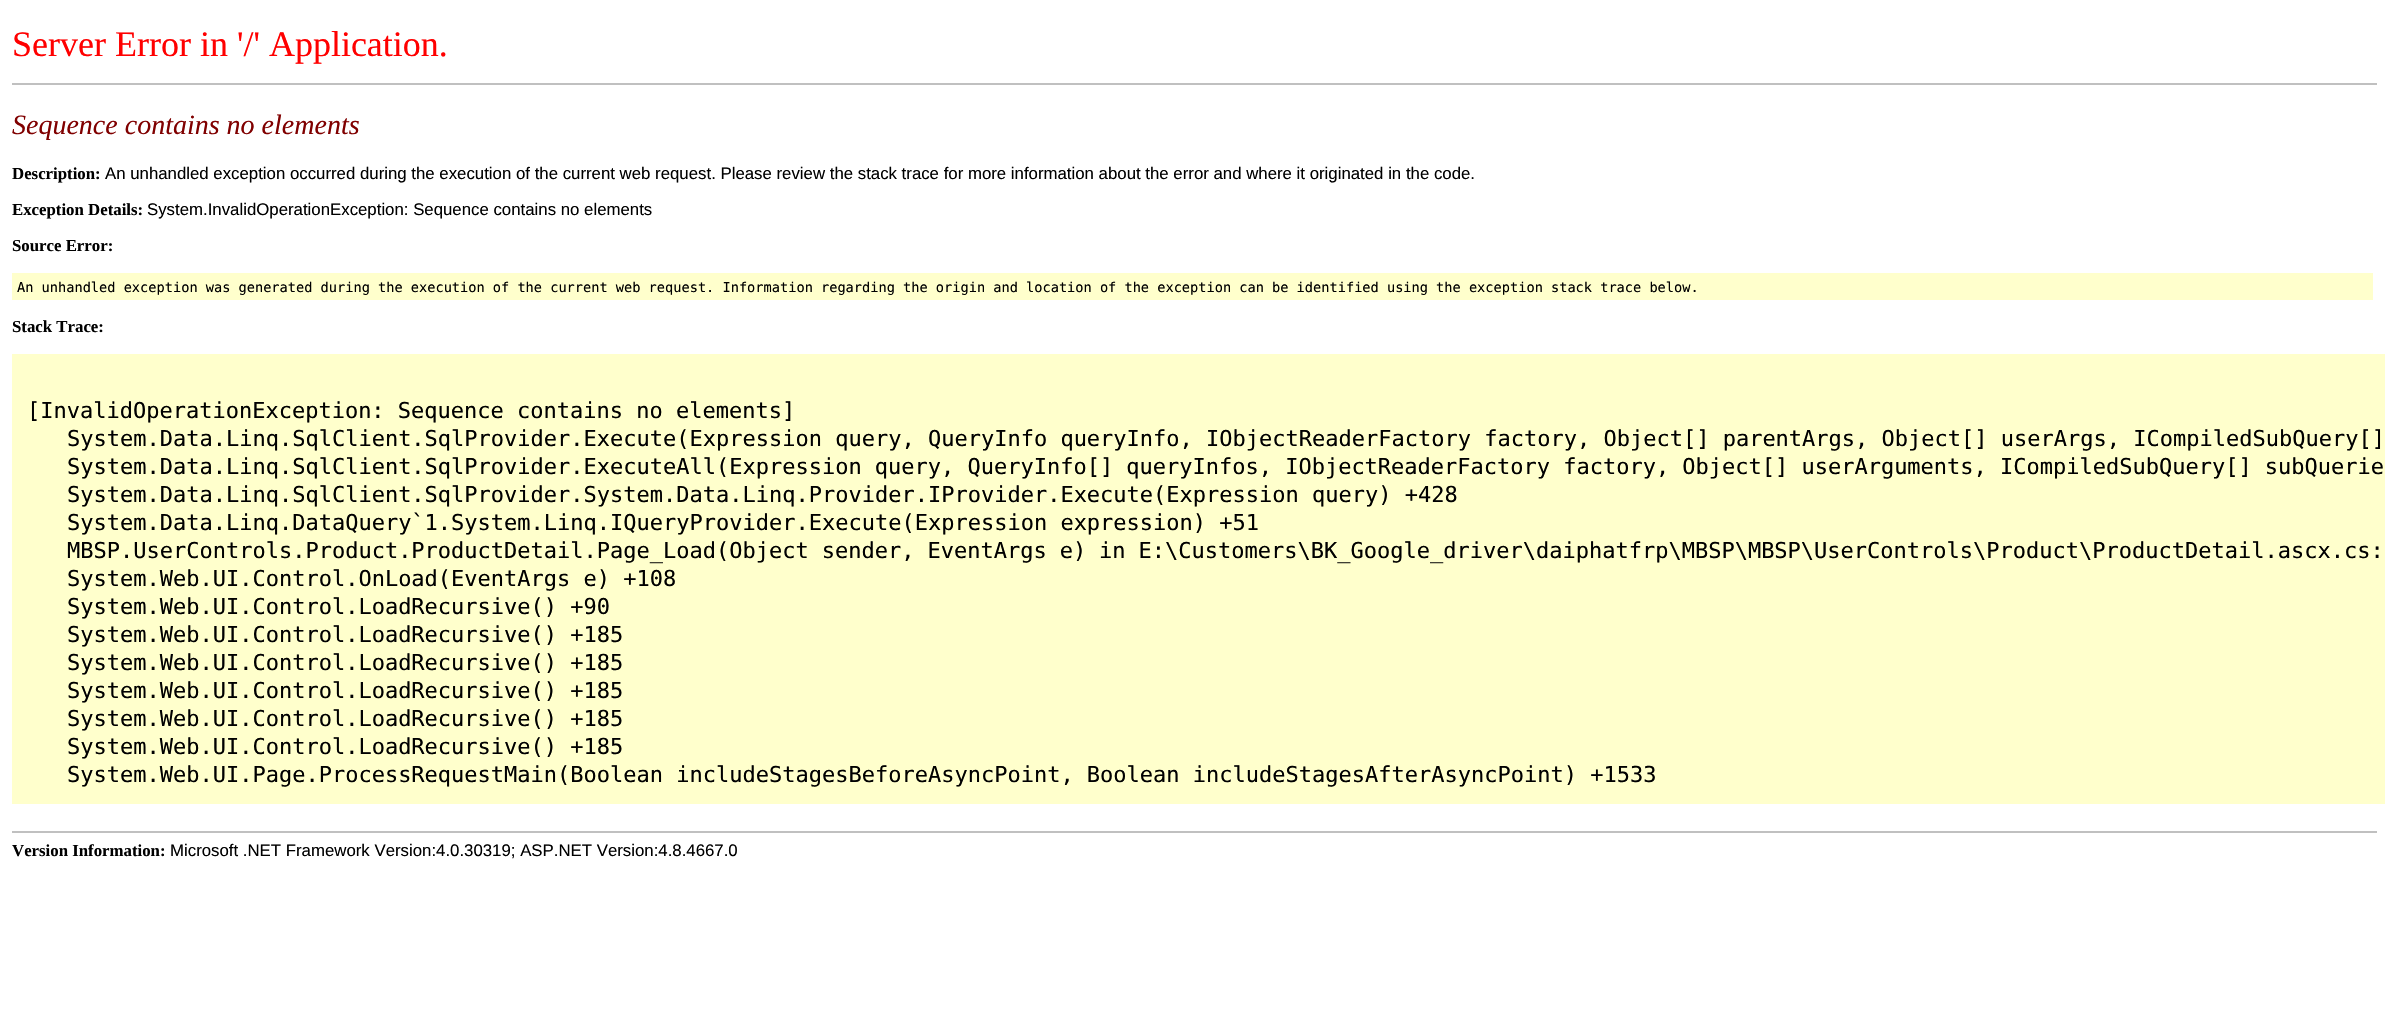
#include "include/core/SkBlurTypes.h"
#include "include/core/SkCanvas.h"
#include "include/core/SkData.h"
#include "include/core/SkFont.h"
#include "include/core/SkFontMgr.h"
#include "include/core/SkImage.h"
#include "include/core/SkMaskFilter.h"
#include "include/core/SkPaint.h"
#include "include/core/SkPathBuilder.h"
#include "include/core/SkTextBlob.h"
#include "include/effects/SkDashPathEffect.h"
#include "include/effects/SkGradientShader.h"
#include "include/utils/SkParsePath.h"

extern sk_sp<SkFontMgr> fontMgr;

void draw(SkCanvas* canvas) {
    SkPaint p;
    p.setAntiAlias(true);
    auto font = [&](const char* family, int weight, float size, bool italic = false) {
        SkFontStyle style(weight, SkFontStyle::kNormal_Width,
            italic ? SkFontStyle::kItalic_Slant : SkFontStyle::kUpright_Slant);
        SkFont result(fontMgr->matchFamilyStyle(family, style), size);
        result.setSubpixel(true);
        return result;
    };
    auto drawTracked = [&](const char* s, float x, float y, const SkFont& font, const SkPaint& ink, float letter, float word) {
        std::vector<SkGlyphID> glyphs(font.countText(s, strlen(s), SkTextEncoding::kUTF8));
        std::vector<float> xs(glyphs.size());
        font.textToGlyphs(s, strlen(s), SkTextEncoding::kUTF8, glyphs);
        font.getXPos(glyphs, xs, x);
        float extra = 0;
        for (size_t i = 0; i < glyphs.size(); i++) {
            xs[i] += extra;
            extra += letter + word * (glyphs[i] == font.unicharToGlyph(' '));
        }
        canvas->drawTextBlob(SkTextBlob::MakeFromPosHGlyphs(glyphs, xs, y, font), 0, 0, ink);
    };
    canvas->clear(0xFFFFFFFF);
    auto font1 = font("Liberation Serif", 400, 36);
    p.setColor(0xFFFF0000);
    canvas->drawString("Server Error in '/' Application.", 12, 56, font1, p);
    p.setColor(0xFFC0C0C0);
    canvas->drawRect(SkRect::MakeLTRB(12, 83, 2377, 85), p);
    auto font2 = font("Liberation Serif", 400, 28, true);
    p.setColor(0xFF800000);
    canvas->drawString("Sequence contains no elements", 12, 134, font2, p);
    auto font3 = font("Liberation Serif", 700, 16.8f);
    p.setColor(0xFF000000);
    canvas->drawString("Description:", 12, 179, font3, p);
    auto font4 = font("Liberation Sans", 400, 16.8f);
    canvas->drawString("An unhandled exception occurred during the execution of the current web request. Please review the stack trace for more information about the error and where it originated in the code.", 105, 179, font4, p);
    canvas->drawString("Exception Details:", 12, 215, font3, p);
    canvas->drawString("System.InvalidOperationException: Sequence contains no elements", 147, 215, font4, p);
    canvas->drawString("Source Error:", 12, 251, font3, p);
    p.setColor(0xFFFFFFCC);
    canvas->drawRect(SkRect::MakeLTRB(12, 273, 2373, 300), p);
    auto font5 = font("DejaVu Sans Mono", 400, 13.65f);
    p.setColor(0xFF000000);
    drawTracked("An unhandled exception was generated during the execution of the current web request. Information regarding the origin and location of the exception can be identified using the exception stack trace below.", 17, 292, font5, p, 0, -0.1f);
    canvas->drawString("Stack Trace:", 12, 332, font3, p);
    p.setColor(0xFFFFFFCC);
    canvas->drawRect(SkRect::MakeLTRB(12, 354, 2385, 804), p);
    auto font6 = font("DejaVu Sans Mono", 400, 22);
    p.setColor(0xFF000000);
    canvas->drawString("[InvalidOperationException: Sequence contains no elements]", 27, 418, font6, p);
    canvas->drawString("System.Data.Linq.SqlClient.SqlProvider.Execute(Expression query, QueryInfo queryInfo, IObjectReaderFactory factory, Object[] parentArgs, Object[] userArgs, ICompiledSubQuery[]", 67, 446, font6, p);
    drawTracked("System.Data.Linq.SqlClient.SqlProvider.ExecuteAll(Expression query, QueryInfo[] queryInfos, IObjectReaderFactory factory, Object[] userArguments, ICompiledSubQuery[] subQuerie", 67, 474, font6, p, 0, -0.1f);
    canvas->drawString("System.Data.Linq.SqlClient.SqlProvider.System.Data.Linq.Provider.IProvider.Execute(Expression query) +428", 67, 502, font6, p);
    canvas->drawString("System.Data.Linq.DataQuery`1.System.Linq.IQueryProvider.Execute(Expression expression) +51", 67, 530, font6, p);
    drawTracked("MBSP.UserControls.Product.ProductDetail.Page_Load(Object sender, EventArgs e) in E:\\Customers\\BK_Google_driver\\daiphatfrp\\MBSP\\MBSP\\UserControls\\Product\\ProductDetail.ascx.cs:", 67, 558, font6, p, 0, -0.25f);
    {
        const struct { const char* s; float x, y; } items[] = {
            {"System.Web.UI.Control.OnLoad(EventArgs e) +108", 67, 586},
            {"System.Web.UI.Control.LoadRecursive() +90", 67, 614},
            {"System.Web.UI.Control.LoadRecursive() +185", 67, 642},
            {"System.Web.UI.Control.LoadRecursive() +185", 67, 670},
            {"System.Web.UI.Control.LoadRecursive() +185", 67, 698},
            {"System.Web.UI.Control.LoadRecursive() +185", 67, 726},
            {"System.Web.UI.Control.LoadRecursive() +185", 67, 754},
            {"System.Web.UI.Page.ProcessRequestMain(Boolean includeStagesBeforeAsyncPoint, Boolean includeStagesAfterAsyncPoint) +1533", 67, 782},
        };
        for (auto [s, x, y] : items) {
            canvas->drawString(s, x, y, font6, p);
        }
    }
    p.setColor(0xFFC0C0C0);
    canvas->drawRect(SkRect::MakeLTRB(12, 831, 2377, 833), p);
    p.setColor(0xFF000000);
    canvas->drawString("Version Information:", 12, 856, font3, p);
    canvas->drawString("Microsoft .NET Framework Version:4.0.30319; ASP.NET Version:4.8.4667.0", 170, 856, font4, p);
}
